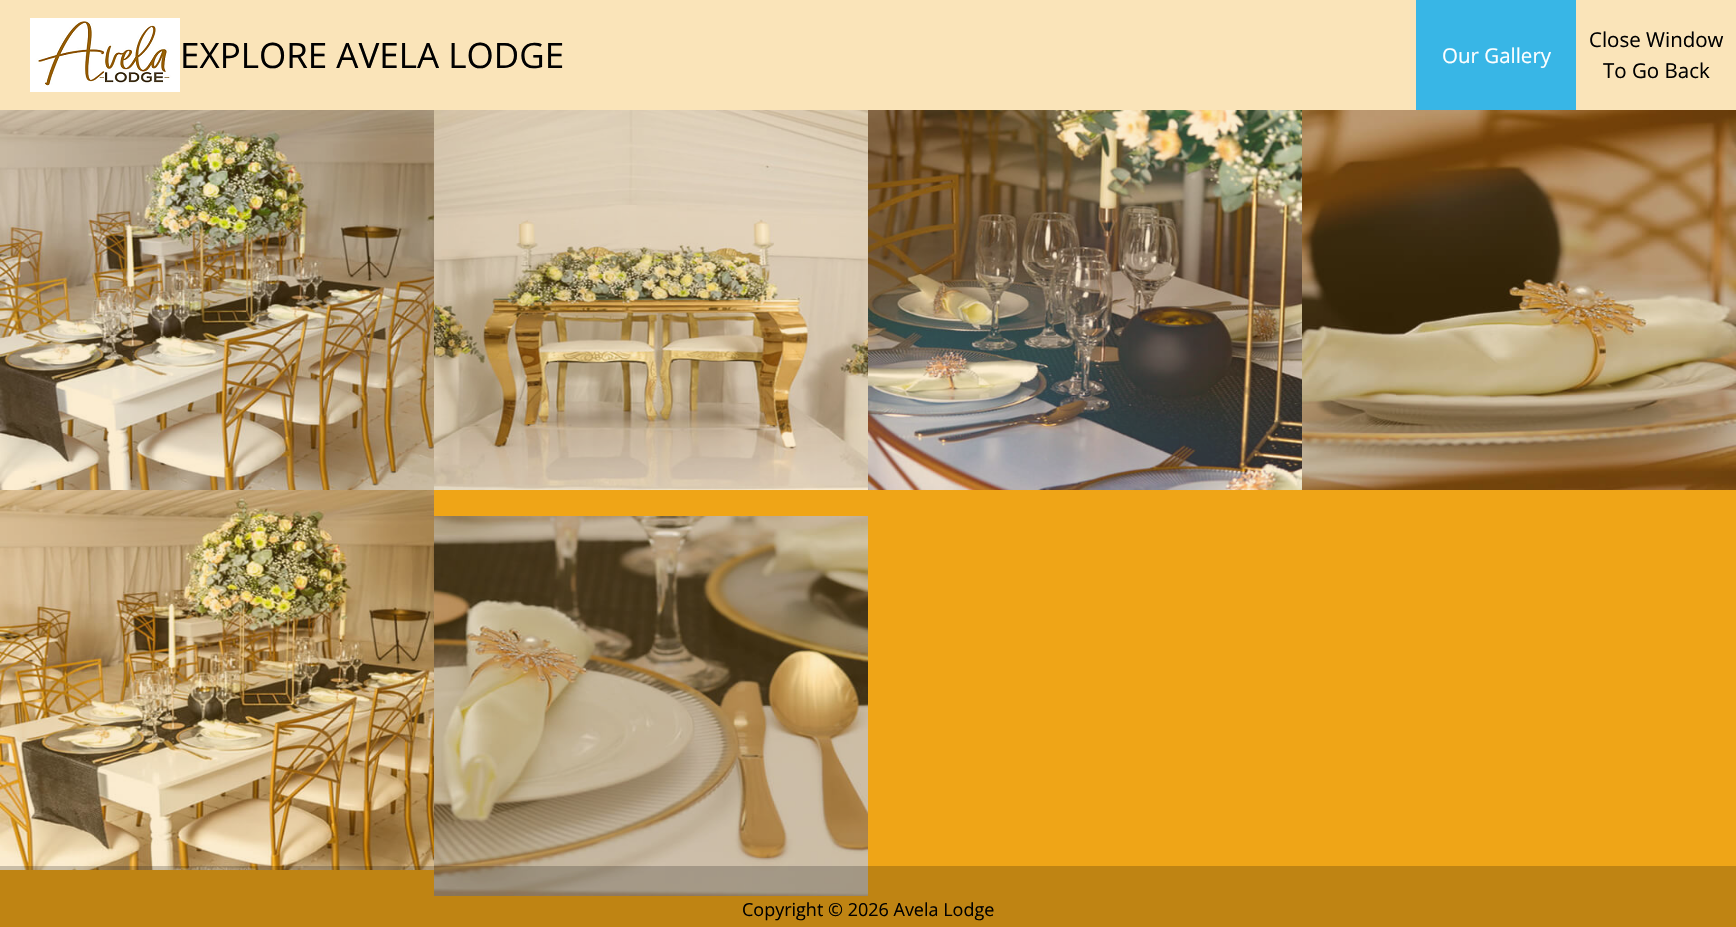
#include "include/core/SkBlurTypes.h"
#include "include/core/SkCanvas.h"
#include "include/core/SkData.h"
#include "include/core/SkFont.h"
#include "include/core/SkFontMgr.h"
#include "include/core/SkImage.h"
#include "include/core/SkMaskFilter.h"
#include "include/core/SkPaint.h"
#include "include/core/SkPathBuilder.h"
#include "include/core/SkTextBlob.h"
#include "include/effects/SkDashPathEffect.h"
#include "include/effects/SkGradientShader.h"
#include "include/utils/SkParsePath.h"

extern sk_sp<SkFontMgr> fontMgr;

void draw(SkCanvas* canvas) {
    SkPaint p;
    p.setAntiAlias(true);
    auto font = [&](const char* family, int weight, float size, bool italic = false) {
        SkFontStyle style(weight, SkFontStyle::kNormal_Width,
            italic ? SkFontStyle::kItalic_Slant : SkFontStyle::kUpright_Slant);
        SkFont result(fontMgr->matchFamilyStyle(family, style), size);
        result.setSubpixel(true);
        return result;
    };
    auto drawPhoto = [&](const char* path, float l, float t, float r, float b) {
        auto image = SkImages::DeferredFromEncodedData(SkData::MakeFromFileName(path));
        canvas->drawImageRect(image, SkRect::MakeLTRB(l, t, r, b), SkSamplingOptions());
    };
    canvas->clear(0xFFEFA517);
    p.setColor(0xFFFAE4B9);
    canvas->drawRect(SkRect::MakeLTRB(0, 0, 1736, 110), p);
    drawPhoto("media/1.png", 30, 18, 180, 92);
    auto font1 = font("Open Sans", 400, 35);
    p.setColor(0xFF000000);
    canvas->drawString("EXPLORE AVELA LODGE", 180, 68, font1, p);
    p.setColor(0xFF38B6E6);
    canvas->drawRect(SkRect::MakeLTRB(1416, 0, 1576, 110), p);
    auto font2 = font("Open Sans", 400, 20.5f);
    p.setColor(0xFFFFFFFF);
    canvas->drawString("Our Gallery", 1442, 63, font2, p);
    p.setColor(0xFF000000);
    canvas->drawString("Close Window", 1589, 47, font2, p);
    canvas->drawString("To Go Back", 1603, 78, font2, p);
    drawPhoto("media/2.png", 0, 110, 434, 490);
    drawPhoto("media/3.png", 434, 110, 868, 490);
    drawPhoto("media/4.png", 868, 110, 1302, 490);
    drawPhoto("media/5.png", 1302, 110, 1736, 490);
    drawPhoto("media/6.png", 0, 490, 434, 870);
    drawPhoto("media/7.png", 434, 516, 868, 896);
    p.setColor(0x33000000);
    canvas->drawRect(SkRect::MakeLTRB(0, 866, 1736, 927), p);
    auto font3 = font("Open Sans", 400, 18);
    p.setColor(0xFF000000);
    canvas->drawString("Copyright © 2026 Avela Lodge", 742, 916, font3, p);
}
